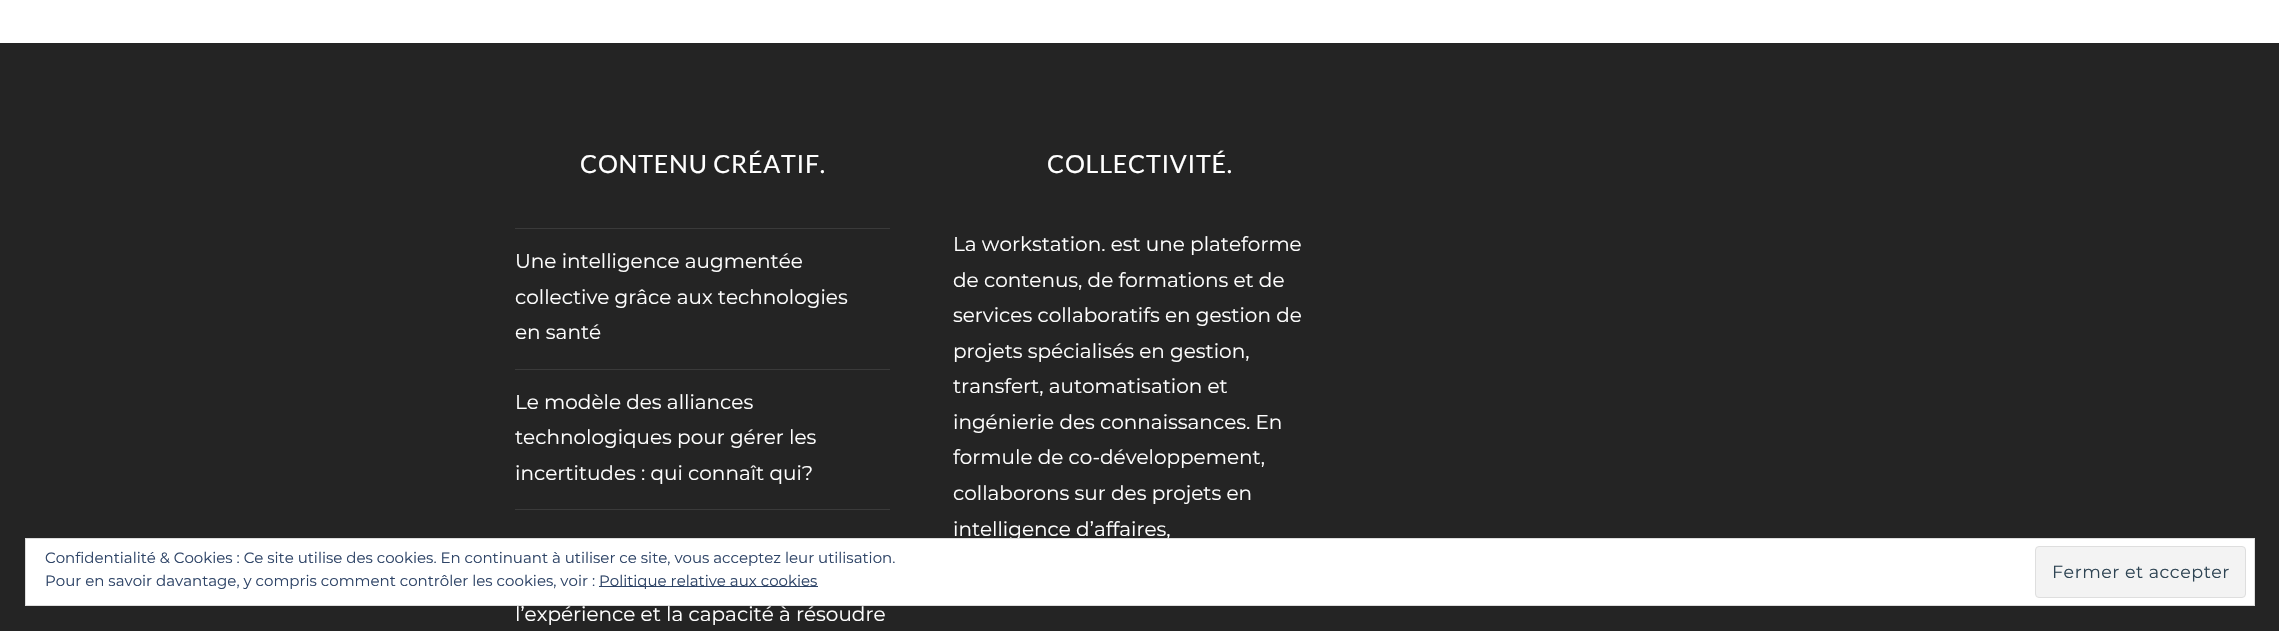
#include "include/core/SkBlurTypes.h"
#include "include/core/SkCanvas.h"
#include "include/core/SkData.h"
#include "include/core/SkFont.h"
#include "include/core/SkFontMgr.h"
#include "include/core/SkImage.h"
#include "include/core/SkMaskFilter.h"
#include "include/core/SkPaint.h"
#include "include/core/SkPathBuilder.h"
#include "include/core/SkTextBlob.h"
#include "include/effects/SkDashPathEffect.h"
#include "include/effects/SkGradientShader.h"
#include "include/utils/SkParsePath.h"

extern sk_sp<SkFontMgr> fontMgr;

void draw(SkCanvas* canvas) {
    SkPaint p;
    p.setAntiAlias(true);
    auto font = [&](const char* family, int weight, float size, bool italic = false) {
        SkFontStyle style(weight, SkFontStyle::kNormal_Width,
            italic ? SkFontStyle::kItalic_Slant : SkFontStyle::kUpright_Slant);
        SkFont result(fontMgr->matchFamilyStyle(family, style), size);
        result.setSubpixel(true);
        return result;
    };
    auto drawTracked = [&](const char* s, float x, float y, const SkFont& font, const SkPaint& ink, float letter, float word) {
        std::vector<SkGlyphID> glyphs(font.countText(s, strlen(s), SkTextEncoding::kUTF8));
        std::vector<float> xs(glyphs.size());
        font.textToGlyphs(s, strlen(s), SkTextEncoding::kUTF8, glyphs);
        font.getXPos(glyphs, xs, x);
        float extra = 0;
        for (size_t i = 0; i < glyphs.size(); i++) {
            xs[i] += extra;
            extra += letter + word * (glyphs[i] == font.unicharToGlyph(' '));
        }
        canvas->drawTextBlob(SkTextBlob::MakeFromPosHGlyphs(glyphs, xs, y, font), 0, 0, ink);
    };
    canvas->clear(0xFFFFFFFF);
    p.setColor(0xFF242424);
    canvas->drawRect(SkRect::MakeLTRB(0, 43, 2279, 631), p);
    auto font1 = font("Lato", 400, 25);
    p.setColor(0xFFFFFFFF);
    drawTracked("CONTENU CRÉATIF.", 580, 173, font1, p, 0.75f, 0);
    p.setColor(0xFF3A3A3A);
    canvas->drawRect(SkRect::MakeLTRB(515, 228, 890, 229), p);
    auto font2 = font("Montserrat", 400, 20);
    p.setColor(0xFFFFFFFF);
    {
        const struct { const char* s; float x, y; } items[] = {
            {"Une intelligence augmentée", 515, 268},
            {"collective grâce aux technologies", 515, 304},
            {"en santé", 515, 339},
        };
        for (auto [s, x, y] : items) {
            canvas->drawString(s, x, y, font2, p);
        }
    }
    p.setColor(0xFF3A3A3A);
    canvas->drawRect(SkRect::MakeLTRB(515, 369, 890, 370), p);
    p.setColor(0xFFFFFFFF);
    {
        const struct { const char* s; float x, y; } items[] = {
            {"Le modèle des alliances", 515, 409},
            {"technologiques pour gérer les", 515, 444},
            {"incertitudes : qui connaît qui?", 515, 480},
        };
        for (auto [s, x, y] : items) {
            canvas->drawString(s, x, y, font2, p);
        }
    }
    p.setColor(0xFF3A3A3A);
    canvas->drawRect(SkRect::MakeLTRB(515, 509, 890, 510), p);
    p.setColor(0xFFFFFFFF);
    canvas->drawString("l’expérience et la capacité à résoudre", 515, 621, font2, p);
    drawTracked("COLLECTIVITÉ.", 1047, 173, font1, p, 0.75f, 0);
    {
        const struct { const char* s; float x, y; } items[] = {
            {"La workstation. est une plateforme", 953, 251},
            {"de contenus, de formations et de", 953, 287},
            {"services collaboratifs en gestion de", 953, 322},
            {"projets spécialisés en gestion,", 953, 358},
            {"transfert, automatisation et", 953, 393},
            {"ingénierie des connaissances. En", 953, 429},
            {"formule de co-développement,", 953, 464},
            {"collaborons sur des projets en", 953, 500},
            {"intelligence d’affaires,", 953, 536},
        };
        for (auto [s, x, y] : items) {
            canvas->drawString(s, x, y, font2, p);
        }
    }
    canvas->drawRect(SkRect::MakeLTRB(25.5f, 538.5f, 2254.5f, 605.5f), p);
    p.setStyle(SkPaint::kStroke_Style);
    p.setStrokeWidth(1);
    p.setColor(0xFFDEDEDE);
    canvas->drawRect(SkRect::MakeLTRB(25.5f, 538.5f, 2254.5f, 605.5f), p);
    auto font3 = font("Montserrat", 400, 15);
    p.setStyle(SkPaint::kFill_Style);
    p.setColor(0xFF2E4467);
    canvas->drawString("Confidentialité & Cookies : Ce site utilise des cookies. En continuant à utiliser ce site, vous acceptez leur utilisation.", 45, 563, font3, p);
    canvas->drawString("Pour en savoir davantage, y compris comment contrôler les cookies, voir :", 45, 586, font3, p);
    canvas->drawRect(SkRect::MakeLTRB(599, 586, 818, 587), p);
    canvas->drawString("Politique relative aux cookies", 599, 586, font3, p);
    p.setColor(0xFFF3F3F3);
    canvas->drawRoundRect(SkRect::MakeLTRB(2035.5f, 546.5f, 2245.5f, 597.5f), 3.5f, 3.5f, p);
    p.setStyle(SkPaint::kStroke_Style);
    p.setColor(0xFFDEDEDE);
    canvas->drawRoundRect(SkRect::MakeLTRB(2035.5f, 546.5f, 2245.5f, 597.5f), 3.5f, 3.5f, p);
    auto font4 = font("Montserrat", 400, 17.5f);
    p.setStyle(SkPaint::kFill_Style);
    p.setColor(0xFF2E4453);
    drawTracked("Fermer et accepter", 2052, 578, font4, p, 0.5f, 0);
}
